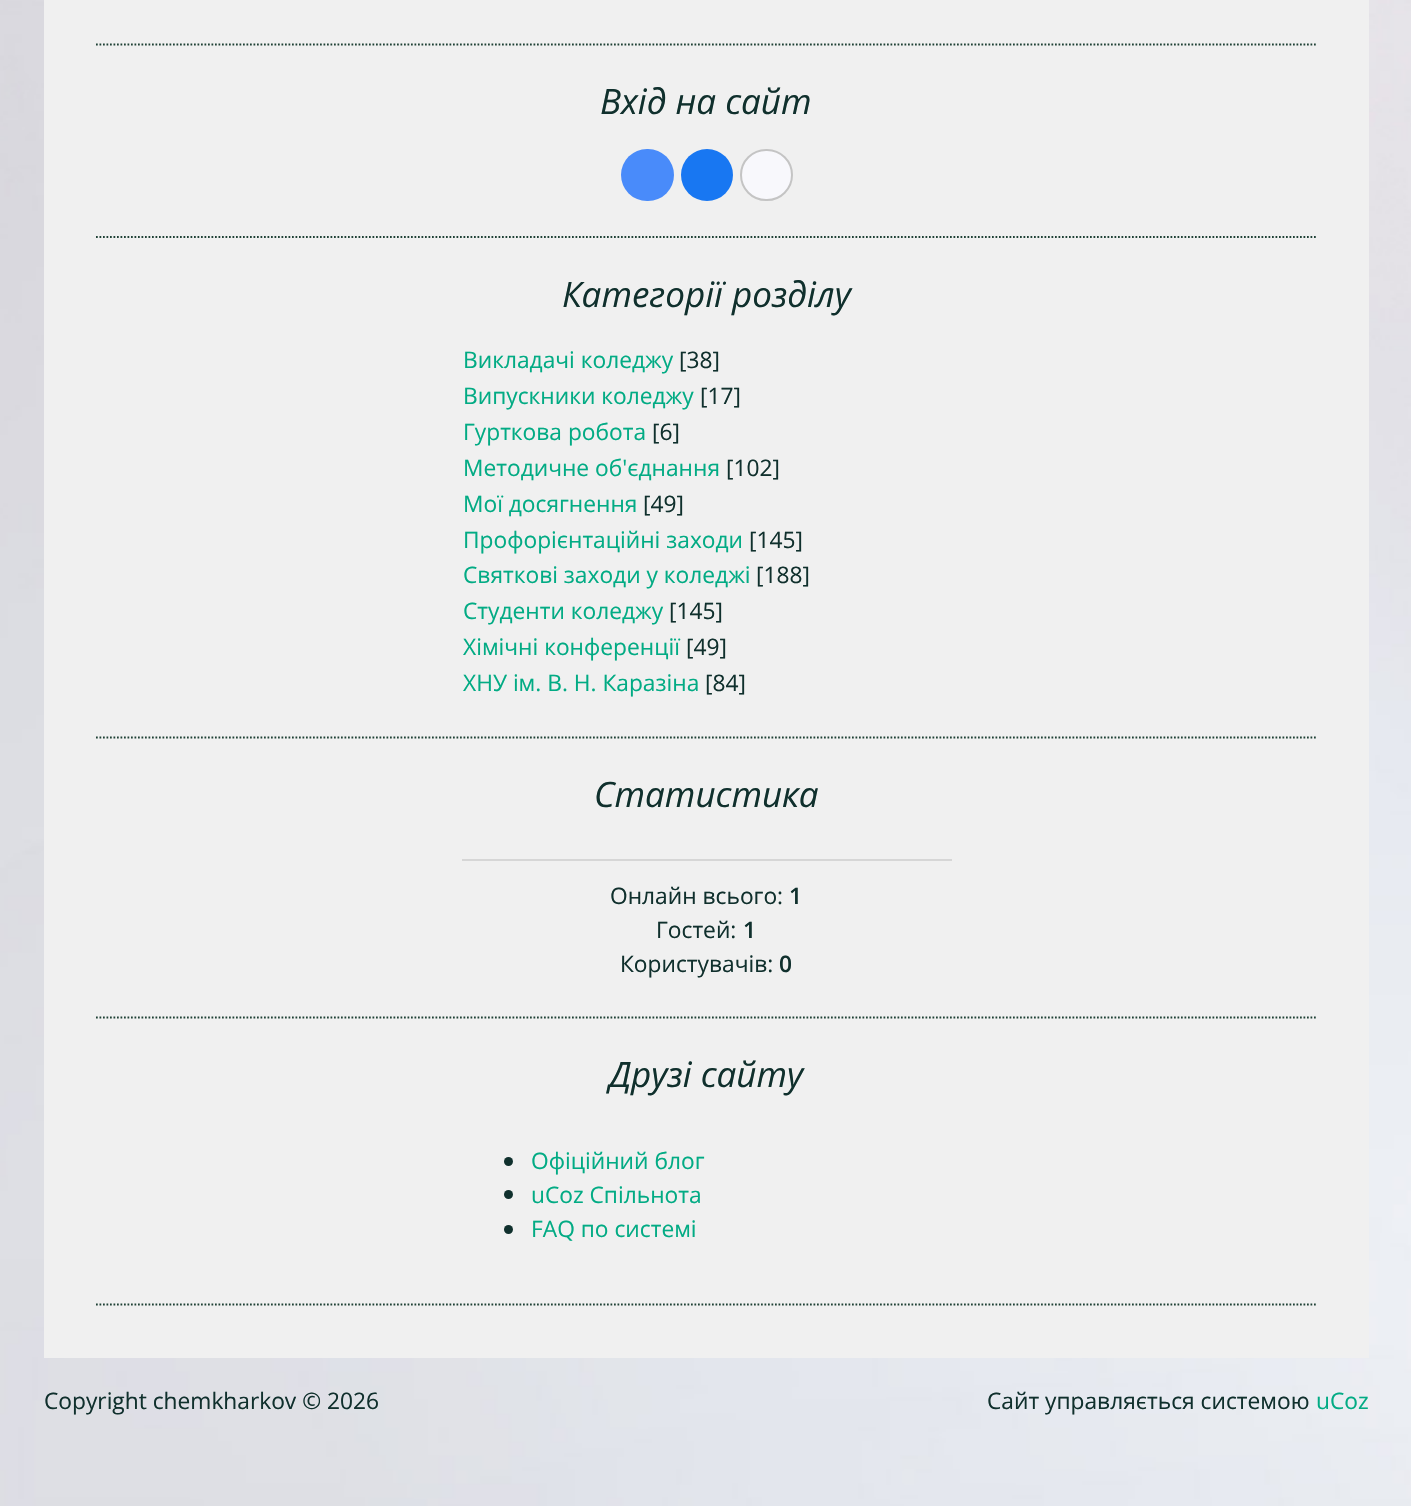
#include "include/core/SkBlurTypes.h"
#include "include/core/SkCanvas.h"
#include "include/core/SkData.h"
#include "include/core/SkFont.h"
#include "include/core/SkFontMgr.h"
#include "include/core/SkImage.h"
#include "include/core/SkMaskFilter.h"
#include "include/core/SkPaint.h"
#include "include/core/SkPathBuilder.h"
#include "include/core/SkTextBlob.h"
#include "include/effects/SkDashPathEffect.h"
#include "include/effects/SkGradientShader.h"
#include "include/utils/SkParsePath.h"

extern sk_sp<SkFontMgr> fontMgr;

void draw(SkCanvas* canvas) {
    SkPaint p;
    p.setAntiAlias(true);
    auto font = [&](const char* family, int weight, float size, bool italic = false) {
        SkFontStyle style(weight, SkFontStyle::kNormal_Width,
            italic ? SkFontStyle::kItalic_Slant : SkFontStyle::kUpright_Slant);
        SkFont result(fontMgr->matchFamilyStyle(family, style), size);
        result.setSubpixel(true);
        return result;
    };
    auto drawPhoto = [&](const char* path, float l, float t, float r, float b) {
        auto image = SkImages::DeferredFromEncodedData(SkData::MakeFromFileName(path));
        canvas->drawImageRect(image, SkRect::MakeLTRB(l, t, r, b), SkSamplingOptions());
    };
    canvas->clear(0xFFFFFFFF);
    drawPhoto("media/1.png", 0, 0, 1411, 1506);
    p.setColor(0xFFF0F0F0);
    canvas->drawRect(SkRect::MakeLTRB(44, 0, 1369, 1358), p);
    p.setStyle(SkPaint::kStroke_Style);
    p.setStrokeWidth(1.8f);
    p.setColor(0xFF1E4035);
    p.setPathEffect(SkDashPathEffect::Make({{1.75f, 1.75f}}, 0));
    canvas->drawPath(SkPathBuilder().moveTo(96, 44.5f).lineTo(1316, 44.5f).detach(), p);
    p.setPathEffect(nullptr);
    p.setPathEffect(SkDashPathEffect::Make({{1.75f, 1.75f}}, 0));
    canvas->drawPath(SkPathBuilder().moveTo(96, 237).lineTo(1316, 237).detach(), p);
    p.setPathEffect(nullptr);
    auto font1 = font("Open Sans", 400, 35, true);
    p.setStyle(SkPaint::kFill_Style);
    p.setColor(0xFF10302D);
    canvas->drawString("Вхід на сайт", 600, 114, font1, p);
    p.setColor(0xFF498BFA);
    canvas->drawRoundRect(SkRect::MakeLTRB(621, 149, 674, 201), 26, 26, p);
    p.setColor(0xFF1877F2);
    canvas->drawCircle(707, 175, 26, p);
    p.setColor(0xFFF8F8FC);
    canvas->drawRoundRect(SkRect::MakeLTRB(741, 150, 792, 200), 25, 25, p);
    p.setStyle(SkPaint::kStroke_Style);
    p.setStrokeWidth(2);
    p.setColor(0xFFC4C4C4);
    canvas->drawRoundRect(SkRect::MakeLTRB(741, 150, 792, 200), 25, 25, p);
    p.setStrokeWidth(1.8f);
    p.setColor(0xFF1E4035);
    p.setPathEffect(SkDashPathEffect::Make({{1.75f, 1.75f}}, 0));
    canvas->drawPath(SkPathBuilder().moveTo(96, 737.5f).lineTo(1316, 737.5f).detach(), p);
    p.setPathEffect(nullptr);
    p.setStyle(SkPaint::kFill_Style);
    p.setColor(0xFF10302D);
    canvas->drawString("Категорії розділу", 562, 307, font1, p);
    auto font2 = font("Open Sans", 400, 22.75f);
    p.setColor(0xFF02AB84);
    canvas->drawString("Викладачі коледжу", 463, 368, font2, p);
    p.setColor(0xFF10302D);
    canvas->drawString("[38]", 679, 368, font2, p);
    p.setColor(0xFF02AB84);
    canvas->drawString("Випускники коледжу", 463, 404, font2, p);
    p.setColor(0xFF10302D);
    canvas->drawString("[17]", 700, 404, font2, p);
    p.setColor(0xFF02AB84);
    canvas->drawString("Гурткова робота", 463, 440, font2, p);
    p.setColor(0xFF10302D);
    canvas->drawString("[6]", 652, 440, font2, p);
    p.setColor(0xFF02AB84);
    canvas->drawString("Методичне об'єднання", 463, 476, font2, p);
    p.setColor(0xFF10302D);
    canvas->drawString("[102]", 726, 476, font2, p);
    p.setColor(0xFF02AB84);
    canvas->drawString("Мої досягнення", 463, 512, font2, p);
    p.setColor(0xFF10302D);
    canvas->drawString("[49]", 643, 512, font2, p);
    p.setColor(0xFF02AB84);
    canvas->drawString("Профорієнтаційні заходи", 463, 548, font2, p);
    p.setColor(0xFF10302D);
    canvas->drawString("[145]", 749, 548, font2, p);
    p.setColor(0xFF02AB84);
    canvas->drawString("Святкові заходи у коледжі", 463, 583, font2, p);
    p.setColor(0xFF10302D);
    canvas->drawString("[188]", 756, 583, font2, p);
    p.setColor(0xFF02AB84);
    canvas->drawString("Студенти коледжу", 463, 619, font2, p);
    p.setColor(0xFF10302D);
    canvas->drawString("[145]", 669, 619, font2, p);
    p.setColor(0xFF02AB84);
    canvas->drawString("Хімічні конференції", 463, 655, font2, p);
    p.setColor(0xFF10302D);
    canvas->drawString("[49]", 686, 655, font2, p);
    p.setColor(0xFF02AB84);
    canvas->drawString("ХНУ ім. В. Н. Каразіна", 463, 691, font2, p);
    p.setColor(0xFF10302D);
    canvas->drawString("[84]", 705, 691, font2, p);
    p.setStyle(SkPaint::kStroke_Style);
    p.setColor(0xFF1E4035);
    p.setPathEffect(SkDashPathEffect::Make({{1.75f, 1.75f}}, 0));
    canvas->drawPath(SkPathBuilder().moveTo(96, 1017.5f).lineTo(1316, 1017.5f).detach(), p);
    p.setPathEffect(nullptr);
    p.setStyle(SkPaint::kFill_Style);
    p.setColor(0xFF10302D);
    canvas->drawString("Статистика", 594, 807, font1, p);
    p.setColor(0xFFD6D6D6);
    canvas->drawRect(SkRect::MakeLTRB(462, 859, 952, 861), p);
    p.setColor(0xFF10302D);
    canvas->drawString("Онлайн всього:", 610, 904, font2, p);
    auto font3 = font("Open Sans", 600, 22.75f);
    canvas->drawString("1", 789, 904, font3, p);
    canvas->drawString("Гостей:", 656, 938, font2, p);
    canvas->drawString("1", 743, 938, font3, p);
    canvas->drawString("Користувачів:", 620, 972, font2, p);
    canvas->drawString("0", 779, 972, font3, p);
    p.setStyle(SkPaint::kStroke_Style);
    p.setColor(0xFF1E4035);
    p.setPathEffect(SkDashPathEffect::Make({{1.75f, 1.75f}}, 0));
    canvas->drawPath(SkPathBuilder().moveTo(96, 1304.5f).lineTo(1316, 1304.5f).detach(), p);
    p.setPathEffect(nullptr);
    p.setStyle(SkPaint::kFill_Style);
    p.setColor(0xFF10302D);
    canvas->drawString("Друзі сайту", 609, 1087, font1, p);
    canvas->drawCircle(508.5f, 1161.5f, 4.5f, p);
    p.setColor(0xFF02AB84);
    canvas->drawString("Офіційний блог", 531, 1169, font2, p);
    p.setColor(0xFF10302D);
    canvas->drawCircle(508.5f, 1194.5f, 4.5f, p);
    p.setColor(0xFF02AB84);
    canvas->drawString("uCoz Спільнота", 531, 1203, font2, p);
    p.setColor(0xFF10302D);
    canvas->drawCircle(508.5f, 1229.5f, 4.5f, p);
    p.setColor(0xFF02AB84);
    canvas->drawString("FAQ по системі", 531, 1237, font2, p);
    p.setColor(0xFF10302D);
    canvas->drawString("Copyright chemkharkov © 2026", 44, 1409, font2, p);
    canvas->drawString("Сайт управляється системою", 987, 1409, font2, p);
    p.setColor(0xFF02AB84);
    canvas->drawString("uCoz", 1316, 1409, font2, p);
}
